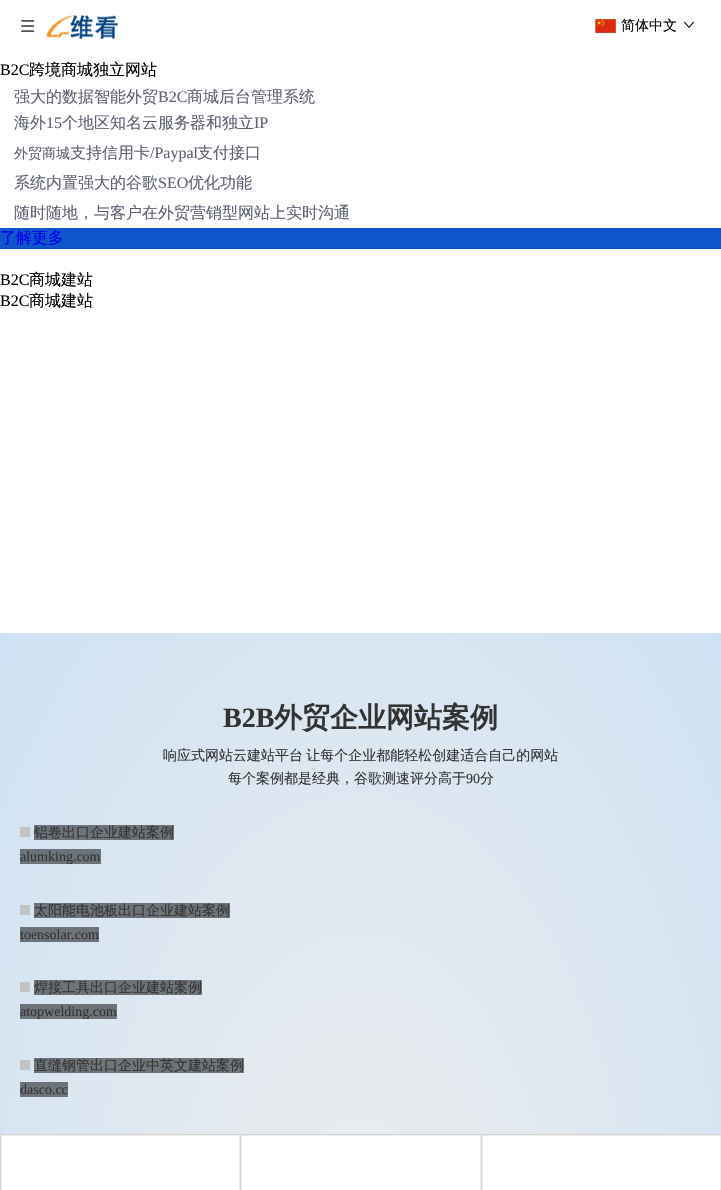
#include "include/core/SkBlurTypes.h"
#include "include/core/SkCanvas.h"
#include "include/core/SkData.h"
#include "include/core/SkFont.h"
#include "include/core/SkFontMgr.h"
#include "include/core/SkImage.h"
#include "include/core/SkMaskFilter.h"
#include "include/core/SkPaint.h"
#include "include/core/SkPathBuilder.h"
#include "include/core/SkTextBlob.h"
#include "include/effects/SkDashPathEffect.h"
#include "include/effects/SkGradientShader.h"
#include "include/utils/SkParsePath.h"

extern sk_sp<SkFontMgr> fontMgr;

void draw(SkCanvas* canvas) {
    SkPaint p;
    p.setAntiAlias(true);
    auto font = [&](const char* family, int weight, float size, bool italic = false) {
        SkFontStyle style(weight, SkFontStyle::kNormal_Width,
            italic ? SkFontStyle::kItalic_Slant : SkFontStyle::kUpright_Slant);
        SkFont result(fontMgr->matchFamilyStyle(family, style), size);
        result.setSubpixel(true);
        return result;
    };
    auto drawTracked = [&](const char* s, float x, float y, const SkFont& font, const SkPaint& ink, float letter, float word) {
        std::vector<SkGlyphID> glyphs(font.countText(s, strlen(s), SkTextEncoding::kUTF8));
        std::vector<float> xs(glyphs.size());
        font.textToGlyphs(s, strlen(s), SkTextEncoding::kUTF8, glyphs);
        font.getXPos(glyphs, xs, x);
        float extra = 0;
        for (size_t i = 0; i < glyphs.size(); i++) {
            xs[i] += extra;
            extra += letter + word * (glyphs[i] == font.unicharToGlyph(' '));
        }
        canvas->drawTextBlob(SkTextBlob::MakeFromPosHGlyphs(glyphs, xs, y, font), 0, 0, ink);
    };
    auto drawPhoto = [&](const char* path, float l, float t, float r, float b) {
        auto image = SkImages::DeferredFromEncodedData(SkData::MakeFromFileName(path));
        canvas->drawImageRect(image, SkRect::MakeLTRB(l, t, r, b), SkSamplingOptions());
    };
    canvas->clear(0xFFFFFFFF);
    drawPhoto("media/1.png", 21, 20, 35, 32);
    drawPhoto("media/2.png", 46, 14, 118, 39);
    drawPhoto("media/3.png", 595, 19, 616, 33);
    auto font1 = font("WenQuanYi Zen Hei", 500, 14);
    p.setColor(0xFF000000);
    canvas->drawString("简体中文", 621, 30, font1, p);
    drawPhoto("media/4.png", 684, 21, 694, 28);
    auto font2 = font("Liberation Serif", 400, 16);
    canvas->drawString("B2C", 0, 75, font2, p);
    auto font3 = font("WenQuanYi Zen Hei", 500, 16);
    canvas->drawString("跨境商城独立网站", 29, 75, font3, p);
    p.setColor(0xFF5D6172);
    canvas->drawString("强大的数据智能外贸", 14, 102, font3, p);
    canvas->drawString("B2C", 158, 102, font2, p);
    canvas->drawString("商城后台管理系统", 187, 102, font3, p);
    canvas->drawString("海外", 14, 128, font3, p);
    canvas->drawString("15", 46, 128, font2, p);
    canvas->drawString("个地区知名云服务器和独立", 62, 128, font3, p);
    canvas->drawString("IP", 254, 128, font2, p);
    canvas->drawString("外贸商城", 14, 158, font1, p);
    canvas->drawString("支持信用卡", 70, 158, font3, p);
    canvas->drawString("/Paypal", 150, 158, font2, p);
    canvas->drawString("支付接口", 197, 158, font3, p);
    canvas->drawString("系统内置强大的谷歌", 14, 188, font3, p);
    canvas->drawString("SEO", 158, 188, font2, p);
    canvas->drawString("优化功能", 188, 188, font3, p);
    canvas->drawString("随时随地，与客户在外贸营销型网站上实时沟通", 14, 218, font3, p);
    p.setColor(0xFF1155CC);
    canvas->drawRect(SkRect::MakeLTRB(0, 228, 721, 249), p);
    p.setColor(0xFF0000EE);
    canvas->drawString("了解更多", 0, 243, font3, p);
    p.setColor(0xFF000000);
    canvas->drawString("B2C", 0, 285, font2, p);
    canvas->drawString("商城建站", 29, 285, font3, p);
    canvas->drawString("B2C", 0, 306, font2, p);
    canvas->drawString("商城建站", 29, 306, font3, p);
    {
        const SkColor colors[] = {0xFFEEEEEE, 0xFFCFE2F3};
        const float stops[] = {0, 1};
        SkMatrix m = SkMatrix::Translate(361, 1327).preScale(510, 981);
        p.setShader(SkGradientShader::MakeRadial({0, 0}, 1, colors, stops, 2, SkTileMode::kClamp, 0, &m));
        p.setAlpha(255);
    }
    canvas->drawRect(SkRect::MakeLTRB(0, 633, 721, 1134), p);
    {
        const SkColor colors[] = {0xFF777777, 0xFF68717A};
        const float stops[] = {0, 1};
        SkMatrix m = SkMatrix::Translate(361, 1327).preScale(510, 981);
        p.setShader(SkGradientShader::MakeRadial({0, 0}, 1, colors, stops, 2, SkTileMode::kClamp, 0, &m));
        p.setAlpha(255);
    }
    canvas->drawRect(SkRect::MakeLTRB(20, 1082, 68, 1097), p);
    canvas->drawRect(SkRect::MakeLTRB(34, 1058, 244, 1073), p);
    canvas->drawRect(SkRect::MakeLTRB(20, 1004, 117, 1019), p);
    canvas->drawRect(SkRect::MakeLTRB(34, 980, 202, 995), p);
    canvas->drawRect(SkRect::MakeLTRB(20, 927, 99, 942), p);
    canvas->drawRect(SkRect::MakeLTRB(34, 903, 230, 918), p);
    canvas->drawRect(SkRect::MakeLTRB(20, 849, 101, 864), p);
    canvas->drawRect(SkRect::MakeLTRB(34, 825, 174, 840), p);
    auto font4 = font("Liberation Serif", 700, 28);
    p.setShader(nullptr);
    p.setColor(0xFF333333);
    canvas->drawString("B2B", 223, 727, font4, p);
    auto font5 = font("WenQuanYi Zen Hei", 700, 28);
    canvas->drawString("外贸企业网站案例", 274, 727, font5, p);
    drawTracked("响应式网站云建站平台 让每个企业都能轻松创建适合自己的网站", 163, 760, font1, p, 0, -1);
    canvas->drawString("每个案例都是经典，谷歌测速评分高于", 228, 783, font1, p);
    auto font6 = font("Liberation Serif", 400, 14);
    canvas->drawString("90", 466, 783, font6, p);
    canvas->drawString("分", 480, 783, font1, p);
    canvas->drawString("铝卷出口企业建站案例", 34, 837, font1, p);
    p.setColor(0xFFC3C3C3);
    canvas->drawRect(SkRect::MakeLTRB(20, 827, 30, 837), p);
    p.setColor(0xFF333333);
    canvas->drawString("alumking.com", 20, 861, font6, p);
    canvas->drawString("太阳能电池板出口企业建站案例", 34, 915, font1, p);
    p.setColor(0xFFC3C3C3);
    canvas->drawRect(SkRect::MakeLTRB(20, 905, 30, 915), p);
    p.setColor(0xFF333333);
    canvas->drawString("toensolar.com", 20, 939, font6, p);
    canvas->drawString("焊接工具出口企业建站案例", 34, 992, font1, p);
    p.setColor(0xFFC3C3C3);
    canvas->drawRect(SkRect::MakeLTRB(20, 982, 30, 992), p);
    p.setColor(0xFF333333);
    canvas->drawString("atopwelding.com", 20, 1016, font6, p);
    canvas->drawString("直缝钢管出口企业中英文建站案例", 34, 1070, font1, p);
    p.setColor(0xFFC3C3C3);
    canvas->drawRect(SkRect::MakeLTRB(20, 1060, 30, 1070), p);
    p.setColor(0xFF333333);
    canvas->drawString("dasco.cc", 20, 1094, font6, p);
    {
        const struct { float l, t, r, b; SkColor color; } items[] = {
            {0, 1134, 721, 1135, 0xFFD3D3D3},
            {0, 1135, 1, 1190, 0xFFD3D3D3},
            {1, 1135, 240, 1136, 0xFFEEEEEE},
            {239, 1135, 240, 1190, 0xFFEEEEEE},
            {1, 1135, 2, 1190, 0xFFEEEEEE},
            {240, 1135, 241, 1190, 0xFFD3D3D3},
            {241, 1135, 481, 1136, 0xFFEEEEEE},
            {480, 1135, 481, 1190, 0xFFEEEEEE},
            {241, 1135, 242, 1190, 0xFFEEEEEE},
            {481, 1135, 482, 1190, 0xFFD3D3D3},
        };
        for (auto [l, t, r, b, color] : items) {
            p.setColor(color);
            canvas->drawRect(SkRect::MakeLTRB(l, t, r, b), p);
        }
    }
    p.setStyle(SkPaint::kStroke_Style);
    p.setStrokeWidth(1);
    p.setColor(0xFFEEEEEE);
    canvas->drawRect(SkRect::MakeLTRB(482.5f, 1135.5f, 720.5f, 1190.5f), p);
}
